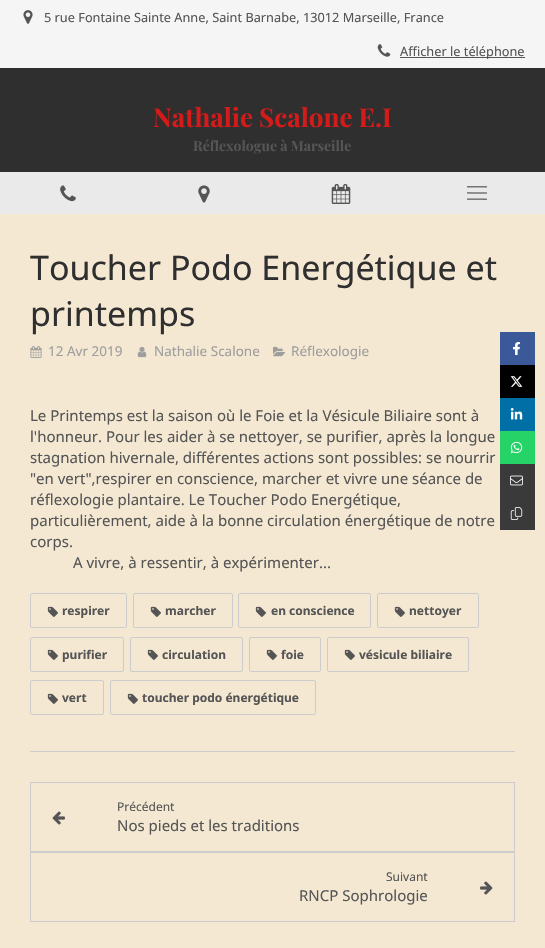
#include "include/core/SkBlurTypes.h"
#include "include/core/SkCanvas.h"
#include "include/core/SkData.h"
#include "include/core/SkFont.h"
#include "include/core/SkFontMgr.h"
#include "include/core/SkImage.h"
#include "include/core/SkMaskFilter.h"
#include "include/core/SkPaint.h"
#include "include/core/SkPathBuilder.h"
#include "include/core/SkTextBlob.h"
#include "include/effects/SkDashPathEffect.h"
#include "include/effects/SkGradientShader.h"
#include "include/utils/SkParsePath.h"

extern sk_sp<SkFontMgr> fontMgr;

void draw(SkCanvas* canvas) {
    SkPaint p;
    p.setAntiAlias(true);
    auto font = [&](const char* family, int weight, float size, bool italic = false) {
        SkFontStyle style(weight, SkFontStyle::kNormal_Width,
            italic ? SkFontStyle::kItalic_Slant : SkFontStyle::kUpright_Slant);
        SkFont result(fontMgr->matchFamilyStyle(family, style), size);
        result.setSubpixel(true);
        return result;
    };
    auto drawPhoto = [&](const char* path, float l, float t, float r, float b) {
        auto image = SkImages::DeferredFromEncodedData(SkData::MakeFromFileName(path));
        canvas->drawImageRect(image, SkRect::MakeLTRB(l, t, r, b), SkSamplingOptions());
    };
    canvas->clear(0xFF2F2F2F);
    p.setColor(0xFFF5F5F5);
    canvas->drawRect(SkRect::MakeLTRB(0, 0, 545, 68), p);
    drawPhoto("media/1.png", 23, 10, 33, 24);
    auto font1 = font("Noto Sans", 400, 12.75f);
    p.setColor(0xFF555555);
    canvas->drawString("5 rue Fontaine Sainte Anne, Saint Barnabe, 13012 Marseille, France", 44, 22, font1, p);
    drawPhoto("media/2.png", 377, 44, 391, 57);
    canvas->drawRect(SkRect::MakeLTRB(400, 57, 525, 58), p);
    canvas->drawString("Afficher le téléphone", 400, 56, font1, p);
    auto font2 = font("Playfair Display", 700, 26);
    p.setColor(0xFFD51A1A);
    canvas->drawString("Nathalie Scalone E.I", 153, 127, font2, p);
    auto font3 = font("Playfair Display", 700, 14);
    p.setColor(0xFF555555);
    canvas->drawString("Réflexologue à Marseille", 193, 151, font3, p);
    p.setColor(0xFFEAEAEA);
    canvas->drawRect(SkRect::MakeLTRB(0, 172, 545, 214), p);
    drawPhoto("media/3.png", 60, 185, 76, 202);
    drawPhoto("media/4.png", 198, 185, 210, 203);
    drawPhoto("media/5.png", 331, 184, 351, 204);
    drawPhoto("media/6.png", 467, 186, 487, 200);
    p.setColor(0xFFF4E8D2);
    canvas->drawRect(SkRect::MakeLTRB(0, 214, 545, 948), p);
    auto font4 = font("Noto Sans", 400, 34);
    p.setColor(0xFF2F2F2F);
    canvas->drawString("Toucher Podo Energétique et", 30, 280, font4, p);
    canvas->drawString("printemps", 30, 326, font4, p);
    drawPhoto("media/7.png", 30, 346, 42, 358);
    auto font5 = font("Noto Sans", 400, 13.5f);
    p.setColor(0xFF9E9E9E);
    canvas->drawString("12 Avr 2019", 48, 356, font5, p);
    drawPhoto("media/8.png", 137, 346, 147, 358);
    canvas->drawString("Nathalie Scalone", 154, 356, font5, p);
    drawPhoto("media/9.png", 273, 346, 285, 357);
    canvas->drawString("Réflexologie", 291, 356, font5, p);
    auto font6 = font("Noto Sans", 400, 15);
    p.setColor(0xFF555555);
    {
        const struct { const char* s; float x, y; } items[] = {
            {"Le Printemps est la saison où le Foie et la Vésicule Biliaire sont à", 30, 421},
            {"l'honneur. Pour les aider à se nettoyer, se purifier, après la longue", 30, 442},
            {"stagnation hivernale, différentes actions sont possibles: se nourrir", 30, 463},
            {"\"en vert\",respirer en conscience, marcher et vivre une séance de", 30, 484},
            {"réflexologie plantaire. Le Toucher Podo Energétique,", 30, 505},
            {"particulièrement, aide à la bonne circulation énergétique de notre", 30, 526},
            {"corps.", 30, 547},
            {"A vivre, à ressentir, à expérimenter...", 73, 568},
        };
        for (auto [s, x, y] : items) {
            canvas->drawString(s, x, y, font6, p);
        }
    }
    p.setStyle(SkPaint::kStroke_Style);
    p.setStrokeWidth(1);
    p.setColor(0xFFCCCCCC);
    canvas->drawRoundRect(SkRect::MakeLTRB(30.5f, 593.5f, 126.5f, 627.5f), 1.5f, 1.5f, p);
    drawPhoto("media/10.png", 47, 606, 58, 617);
    auto font7 = font("Noto Sans", 700, 12);
    p.setStyle(SkPaint::kFill_Style);
    p.setColor(0xFF555555);
    canvas->drawString("respirer", 62, 615, font7, p);
    p.setStyle(SkPaint::kStroke_Style);
    p.setColor(0xFFCCCCCC);
    canvas->drawRoundRect(SkRect::MakeLTRB(133.5f, 593.5f, 232.5f, 627.5f), 1.5f, 1.5f, p);
    drawPhoto("media/10.png", 150, 606, 161, 617);
    p.setStyle(SkPaint::kFill_Style);
    p.setColor(0xFF555555);
    canvas->drawString("marcher", 165, 615, font7, p);
    p.setStyle(SkPaint::kStroke_Style);
    p.setColor(0xFFCCCCCC);
    canvas->drawRoundRect(SkRect::MakeLTRB(238.5f, 593.5f, 370.5f, 627.5f), 1.5f, 1.5f, p);
    drawPhoto("media/10.png", 255, 606, 266, 617);
    p.setStyle(SkPaint::kFill_Style);
    p.setColor(0xFF555555);
    canvas->drawString("en conscience", 271, 615, font7, p);
    p.setStyle(SkPaint::kStroke_Style);
    p.setColor(0xFFCCCCCC);
    canvas->drawRoundRect(SkRect::MakeLTRB(377.5f, 593.5f, 478.5f, 627.5f), 1.5f, 1.5f, p);
    drawPhoto("media/10.png", 394, 606, 405, 617);
    p.setStyle(SkPaint::kFill_Style);
    p.setColor(0xFF555555);
    canvas->drawString("nettoyer", 409, 615, font7, p);
    p.setStyle(SkPaint::kStroke_Style);
    p.setColor(0xFFCCCCCC);
    canvas->drawRoundRect(SkRect::MakeLTRB(30.5f, 637.5f, 123.5f, 671.5f), 1.5f, 1.5f, p);
    drawPhoto("media/10.png", 47, 649, 58, 660);
    p.setStyle(SkPaint::kFill_Style);
    p.setColor(0xFF555555);
    canvas->drawString("purifier", 62, 659, font7, p);
    p.setStyle(SkPaint::kStroke_Style);
    p.setColor(0xFFCCCCCC);
    canvas->drawRoundRect(SkRect::MakeLTRB(130.5f, 637.5f, 242.5f, 671.5f), 1.5f, 1.5f, p);
    drawPhoto("media/10.png", 147, 649, 158, 660);
    p.setStyle(SkPaint::kFill_Style);
    p.setColor(0xFF555555);
    canvas->drawString("circulation", 162, 659, font7, p);
    p.setStyle(SkPaint::kStroke_Style);
    p.setColor(0xFFCCCCCC);
    canvas->drawRoundRect(SkRect::MakeLTRB(249.5f, 637.5f, 320.5f, 671.5f), 1.5f, 1.5f, p);
    drawPhoto("media/10.png", 266, 649, 277, 660);
    p.setStyle(SkPaint::kFill_Style);
    p.setColor(0xFF555555);
    canvas->drawString("foie", 281, 659, font7, p);
    p.setStyle(SkPaint::kStroke_Style);
    p.setColor(0xFFCCCCCC);
    canvas->drawRoundRect(SkRect::MakeLTRB(327.5f, 637.5f, 468.5f, 671.5f), 1.5f, 1.5f, p);
    drawPhoto("media/10.png", 344, 649, 355, 660);
    p.setStyle(SkPaint::kFill_Style);
    p.setColor(0xFF555555);
    canvas->drawString("vésicule biliaire", 359, 659, font7, p);
    p.setStyle(SkPaint::kStroke_Style);
    p.setColor(0xFFCCCCCC);
    canvas->drawRoundRect(SkRect::MakeLTRB(30.5f, 680.5f, 103.5f, 714.5f), 1.5f, 1.5f, p);
    drawPhoto("media/10.png", 47, 693, 58, 704);
    p.setStyle(SkPaint::kFill_Style);
    p.setColor(0xFF555555);
    canvas->drawString("vert", 62, 702, font7, p);
    p.setStyle(SkPaint::kStroke_Style);
    p.setColor(0xFFCCCCCC);
    canvas->drawRoundRect(SkRect::MakeLTRB(110.5f, 680.5f, 315.5f, 714.5f), 1.5f, 1.5f, p);
    drawPhoto("media/10.png", 127, 693, 138, 704);
    p.setStyle(SkPaint::kFill_Style);
    p.setColor(0xFF555555);
    canvas->drawString("toucher podo énergétique", 142, 702, font7, p);
    p.setColor(0xFF3B5998);
    canvas->drawRect(SkRect::MakeLTRB(500, 332, 535, 365), p);
    drawPhoto("media/11.png", 513, 342, 520, 355);
    p.setColor(0xFF000000);
    canvas->drawRect(SkRect::MakeLTRB(500, 365, 535, 398), p);
    drawPhoto("media/12.png", 510, 376, 523, 387);
    p.setColor(0xFF006FA6);
    canvas->drawRect(SkRect::MakeLTRB(500, 398, 535, 431), p);
    drawPhoto("media/13.png", 510, 408, 523, 420);
    p.setColor(0xFF25D366);
    canvas->drawRect(SkRect::MakeLTRB(500, 431, 535, 464), p);
    drawPhoto("media/14.png", 510, 441, 523, 454);
    p.setColor(0xFF3A3A3A);
    canvas->drawRect(SkRect::MakeLTRB(500, 464, 535, 530), p);
    drawPhoto("media/15.png", 510, 475, 523, 486);
    drawPhoto("media/16.png", 510, 507, 523, 520);
    p.setColor(0xFFCCCCCC);
    canvas->drawRect(SkRect::MakeLTRB(30, 751, 515, 752), p);
    p.setStyle(SkPaint::kStroke_Style);
    canvas->drawRect(SkRect::MakeLTRB(30.5f, 782.5f, 514.5f, 851.5f), p);
    drawPhoto("media/17.png", 52, 811, 65, 825);
    auto font8 = font("Noto Sans", 400, 12);
    p.setStyle(SkPaint::kFill_Style);
    p.setColor(0xFF555555);
    canvas->drawString("Précédent", 117, 811, font8, p);
    canvas->drawString("Nos pieds et les traditions", 117, 831, font6, p);
    p.setStyle(SkPaint::kStroke_Style);
    p.setColor(0xFFCCCCCC);
    canvas->drawRect(SkRect::MakeLTRB(30.5f, 852.5f, 514.5f, 921.5f), p);
    p.setStyle(SkPaint::kFill_Style);
    p.setColor(0xFF555555);
    canvas->drawString("Suivant", 386, 881, font8, p);
    canvas->drawString("RNCP Sophrologie", 299, 901, font6, p);
    drawPhoto("media/18.png", 480, 881, 493, 895);
}
